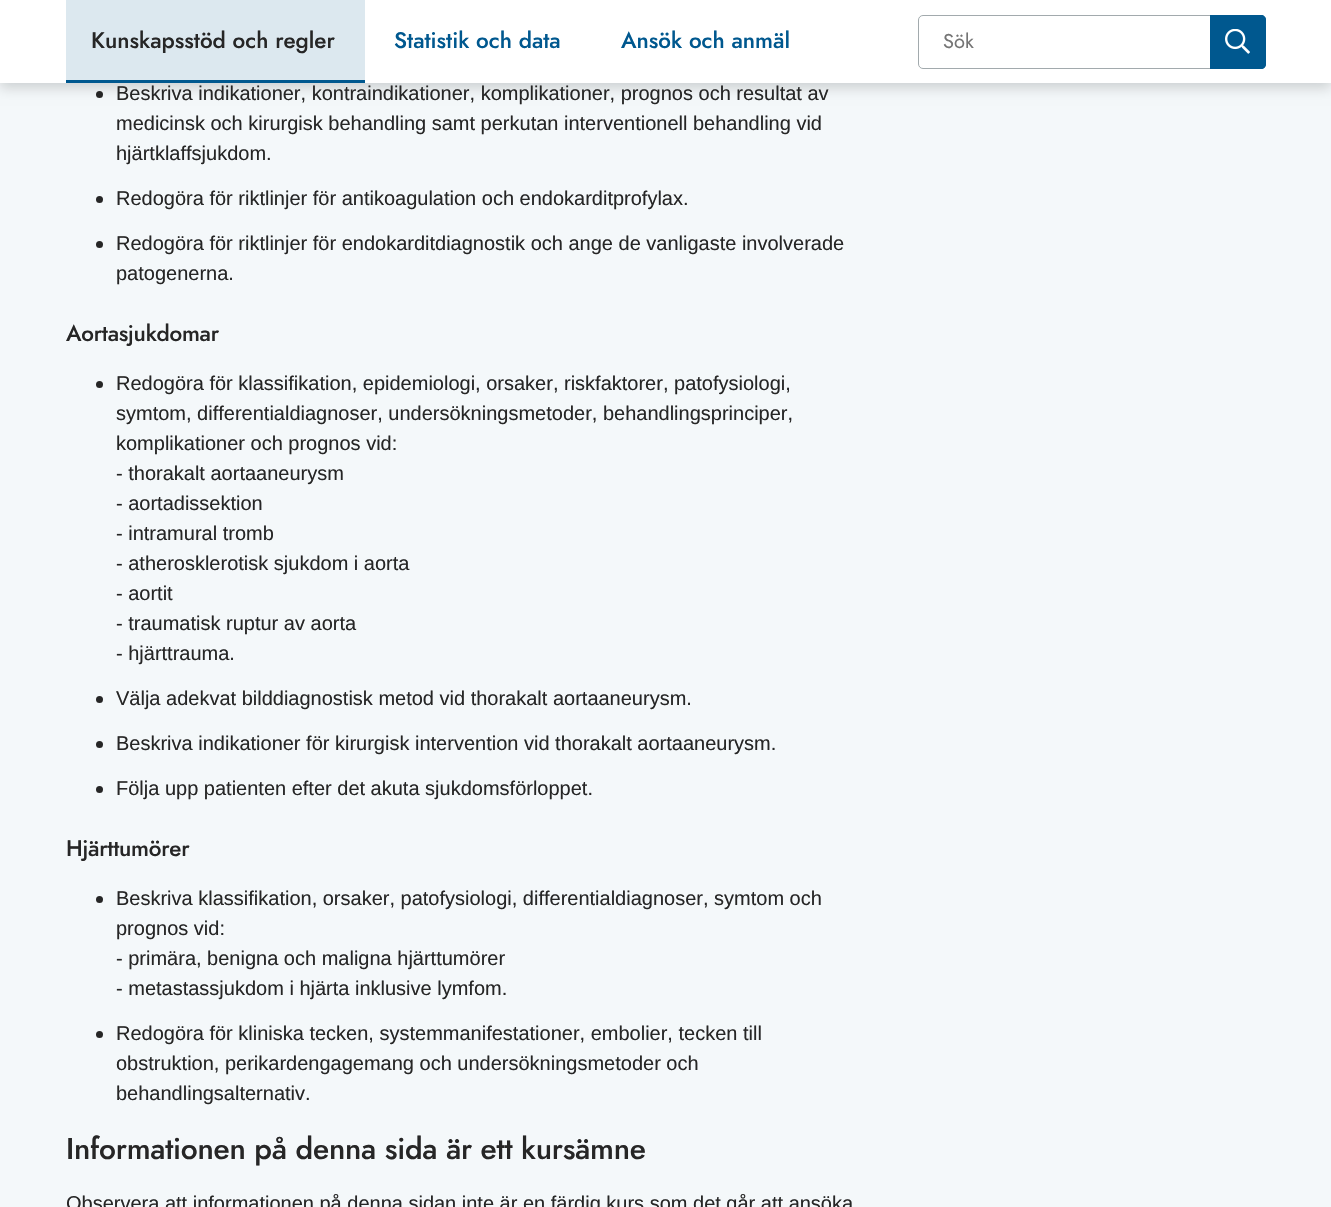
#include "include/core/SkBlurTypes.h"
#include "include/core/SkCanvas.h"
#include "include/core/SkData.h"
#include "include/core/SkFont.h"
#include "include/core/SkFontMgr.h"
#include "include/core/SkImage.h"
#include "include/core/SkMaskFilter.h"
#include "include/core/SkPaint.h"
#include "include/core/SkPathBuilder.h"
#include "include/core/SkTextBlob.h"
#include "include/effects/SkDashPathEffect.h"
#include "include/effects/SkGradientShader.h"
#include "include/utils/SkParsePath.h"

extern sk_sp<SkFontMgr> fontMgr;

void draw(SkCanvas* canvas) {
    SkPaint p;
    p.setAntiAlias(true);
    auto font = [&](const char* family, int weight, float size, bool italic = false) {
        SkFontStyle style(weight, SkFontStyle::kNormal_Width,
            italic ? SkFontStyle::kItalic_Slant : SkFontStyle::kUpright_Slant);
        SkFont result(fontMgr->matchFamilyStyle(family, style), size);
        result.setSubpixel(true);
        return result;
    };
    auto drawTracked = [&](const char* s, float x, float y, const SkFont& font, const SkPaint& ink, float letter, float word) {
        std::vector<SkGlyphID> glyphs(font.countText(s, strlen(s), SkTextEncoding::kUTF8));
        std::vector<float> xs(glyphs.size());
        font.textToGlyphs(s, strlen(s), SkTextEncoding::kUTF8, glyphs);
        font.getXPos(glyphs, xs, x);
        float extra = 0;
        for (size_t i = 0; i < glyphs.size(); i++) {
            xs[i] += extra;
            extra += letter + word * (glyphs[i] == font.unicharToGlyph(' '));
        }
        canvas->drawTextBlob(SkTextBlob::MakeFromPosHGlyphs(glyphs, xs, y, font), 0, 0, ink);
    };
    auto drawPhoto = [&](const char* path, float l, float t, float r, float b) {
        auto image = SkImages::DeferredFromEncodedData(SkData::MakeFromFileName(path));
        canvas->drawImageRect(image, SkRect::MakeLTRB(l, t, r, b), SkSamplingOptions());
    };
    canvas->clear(0xFFF4F8FA);
    p.setColor(0xFF262626);
    canvas->drawCircle(99.5f, 94.5f, 3.5f, p);
    p.setColor(0x29000000);
    p.setMaskFilter(SkMaskFilter::MakeBlur(kNormal_SkBlurStyle, 6));
    canvas->drawRect(SkRect::MakeLTRB(0, 5, 1331, 88), p);
    p.setMaskFilter(nullptr);
    {
        const struct { float l, t, r, b; SkColor color; } items[] = {
            {0, 0, 1331, 83, 0xFFFFFFFF},
            {66, 0, 365, 80, 0xFFDCE8EF},
            {66, 80, 365, 83, 0xFF00588F},
        };
        for (auto [l, t, r, b, color] : items) {
            p.setColor(color);
            canvas->drawRect(SkRect::MakeLTRB(l, t, r, b), p);
        }
    }
    auto font1 = font("Jost", 500, 22.5f);
    p.setColor(0xFF262626);
    canvas->drawString("Kunskapsstöd och regler", 91, 48, font1, p);
    p.setColor(0xFF00588F);
    canvas->drawString("Statistik och data", 394, 48, font1, p);
    canvas->drawString("Ansök och anmäl", 621, 48, font1, p);
    p.setStyle(SkPaint::kStroke_Style);
    p.setStrokeWidth(1);
    p.setColor(0xFFA2AAAD);
    canvas->drawPath(SkPathBuilder().moveTo(923, 15.5f).lineTo(1214.5f, 15.5f).lineTo(1214.5f, 68.5f).lineTo(923, 68.5f).cubicTo(920.5f, 68.5f, 918.5f, 66.5f, 918.5f, 64).lineTo(918.5f, 20).cubicTo(918.5f, 17.5f, 920.5f, 15.5f, 923, 15.5f).close().detach(), p);
    auto font2 = font("Jost", 400, 20);
    p.setStyle(SkPaint::kFill_Style);
    p.setColor(0xFF757575);
    canvas->drawString("Sök", 943, 48, font2, p);
    p.setColor(0xFF00588F);
    canvas->drawPath(SkPathBuilder().moveTo(1210, 15).lineTo(1261, 15).cubicTo(1264, 15, 1266, 17, 1266, 20).lineTo(1266, 64).cubicTo(1266, 67, 1264, 69, 1261, 69).lineTo(1210, 69).close().detach(), p);
    drawPhoto("media/1.png", 1225, 29, 1250, 54);
    p.setStyle(SkPaint::kStroke_Style);
    canvas->drawPath(SkPathBuilder().moveTo(1210.5f, 15.5f).lineTo(1261, 15.5f).cubicTo(1263.5f, 15.5f, 1265.5f, 17.5f, 1265.5f, 20).lineTo(1265.5f, 64).cubicTo(1265.5f, 66.5f, 1263.5f, 68.5f, 1261, 68.5f).lineTo(1210.5f, 68.5f).close().detach(), p);
    auto font3 = font("Liberation Sans", 400, 20);
    p.setStyle(SkPaint::kFill_Style);
    p.setColor(0xFF262626);
    {
        const struct { const char* s; float x, y; } items[] = {
            {"Beskriva indikationer, kontraindikationer, komplikationer, prognos och resultat av", 116, 100},
            {"medicinsk och kirurgisk behandling samt perkutan interventionell behandling vid", 116, 130},
            {"hjärtklaffsjukdom.", 116, 160},
        };
        for (auto [s, x, y] : items) {
            canvas->drawString(s, x, y, font3, p);
        }
    }
    canvas->drawCircle(99.5f, 199.5f, 3.5f, p);
    canvas->drawString("Redogöra för riktlinjer för antikoagulation och endokarditprofylax.", 116, 205, font3, p);
    canvas->drawCircle(99.5f, 244.5f, 3.5f, p);
    canvas->drawString("Redogöra för riktlinjer för endokarditdiagnostik och ange de vanligaste involverade", 116, 250, font3, p);
    canvas->drawString("patogenerna.", 116, 280, font3, p);
    drawTracked("Aortasjukdomar", 66, 341, font1, p, -0.25f, 0);
    canvas->drawCircle(99.5f, 384.5f, 3.5f, p);
    {
        const struct { const char* s; float x, y; } items[] = {
            {"Redogöra för klassifikation, epidemiologi, orsaker, riskfaktorer, patofysiologi,", 116, 390},
            {"symtom, differentialdiagnoser, undersökningsmetoder, behandlingsprinciper,", 116, 420},
            {"komplikationer och prognos vid:", 116, 450},
            {"- thorakalt aortaaneurysm", 116, 480},
            {"- aortadissektion", 116, 510},
            {"- intramural tromb", 116, 540},
            {"- atherosklerotisk sjukdom i aorta", 116, 570},
            {"- aortit", 116, 600},
            {"- traumatisk ruptur av aorta", 116, 630},
            {"- hjärttrauma.", 116, 660},
        };
        for (auto [s, x, y] : items) {
            canvas->drawString(s, x, y, font3, p);
        }
    }
    canvas->drawCircle(99.5f, 699.5f, 3.5f, p);
    canvas->drawString("Välja adekvat bilddiagnostisk metod vid thorakalt aortaaneurysm.", 116, 705, font3, p);
    canvas->drawCircle(99.5f, 744.5f, 3.5f, p);
    canvas->drawString("Beskriva indikationer för kirurgisk intervention vid thorakalt aortaaneurysm.", 116, 750, font3, p);
    canvas->drawCircle(99.5f, 789.5f, 3.5f, p);
    canvas->drawString("Följa upp patienten efter det akuta sjukdomsförloppet.", 116, 795, font3, p);
    drawTracked("Hjärttumörer", 66, 856, font1, p, -0.25f, 0);
    canvas->drawCircle(99.5f, 899.5f, 3.5f, p);
    {
        const struct { const char* s; float x, y; } items[] = {
            {"Beskriva klassifikation, orsaker, patofysiologi, differentialdiagnoser, symtom och", 116, 905},
            {"prognos vid:", 116, 935},
            {"- primära, benigna och maligna hjärttumörer", 116, 965},
            {"- metastassjukdom i hjärta inklusive lymfom.", 116, 995},
        };
        for (auto [s, x, y] : items) {
            canvas->drawString(s, x, y, font3, p);
        }
    }
    canvas->drawCircle(99.5f, 1034.5f, 3.5f, p);
    {
        const struct { const char* s; float x, y; } items[] = {
            {"Redogöra för kliniska tecken, systemmanifestationer, embolier, tecken till", 116, 1040},
            {"obstruktion, perikardengagemang och undersökningsmetoder och", 116, 1070},
            {"behandlingsalternativ.", 116, 1100},
        };
        for (auto [s, x, y] : items) {
            canvas->drawString(s, x, y, font3, p);
        }
    }
    auto font4 = font("Jost", 500, 30);
    drawTracked("Informationen på denna sida är ett kursämne", 66, 1159, font4, p, -0.25f, 0);
    canvas->drawString("Observera att informationen på denna sidan inte är en färdig kurs som det går att ansöka", 66, 1210, font3, p);
}
